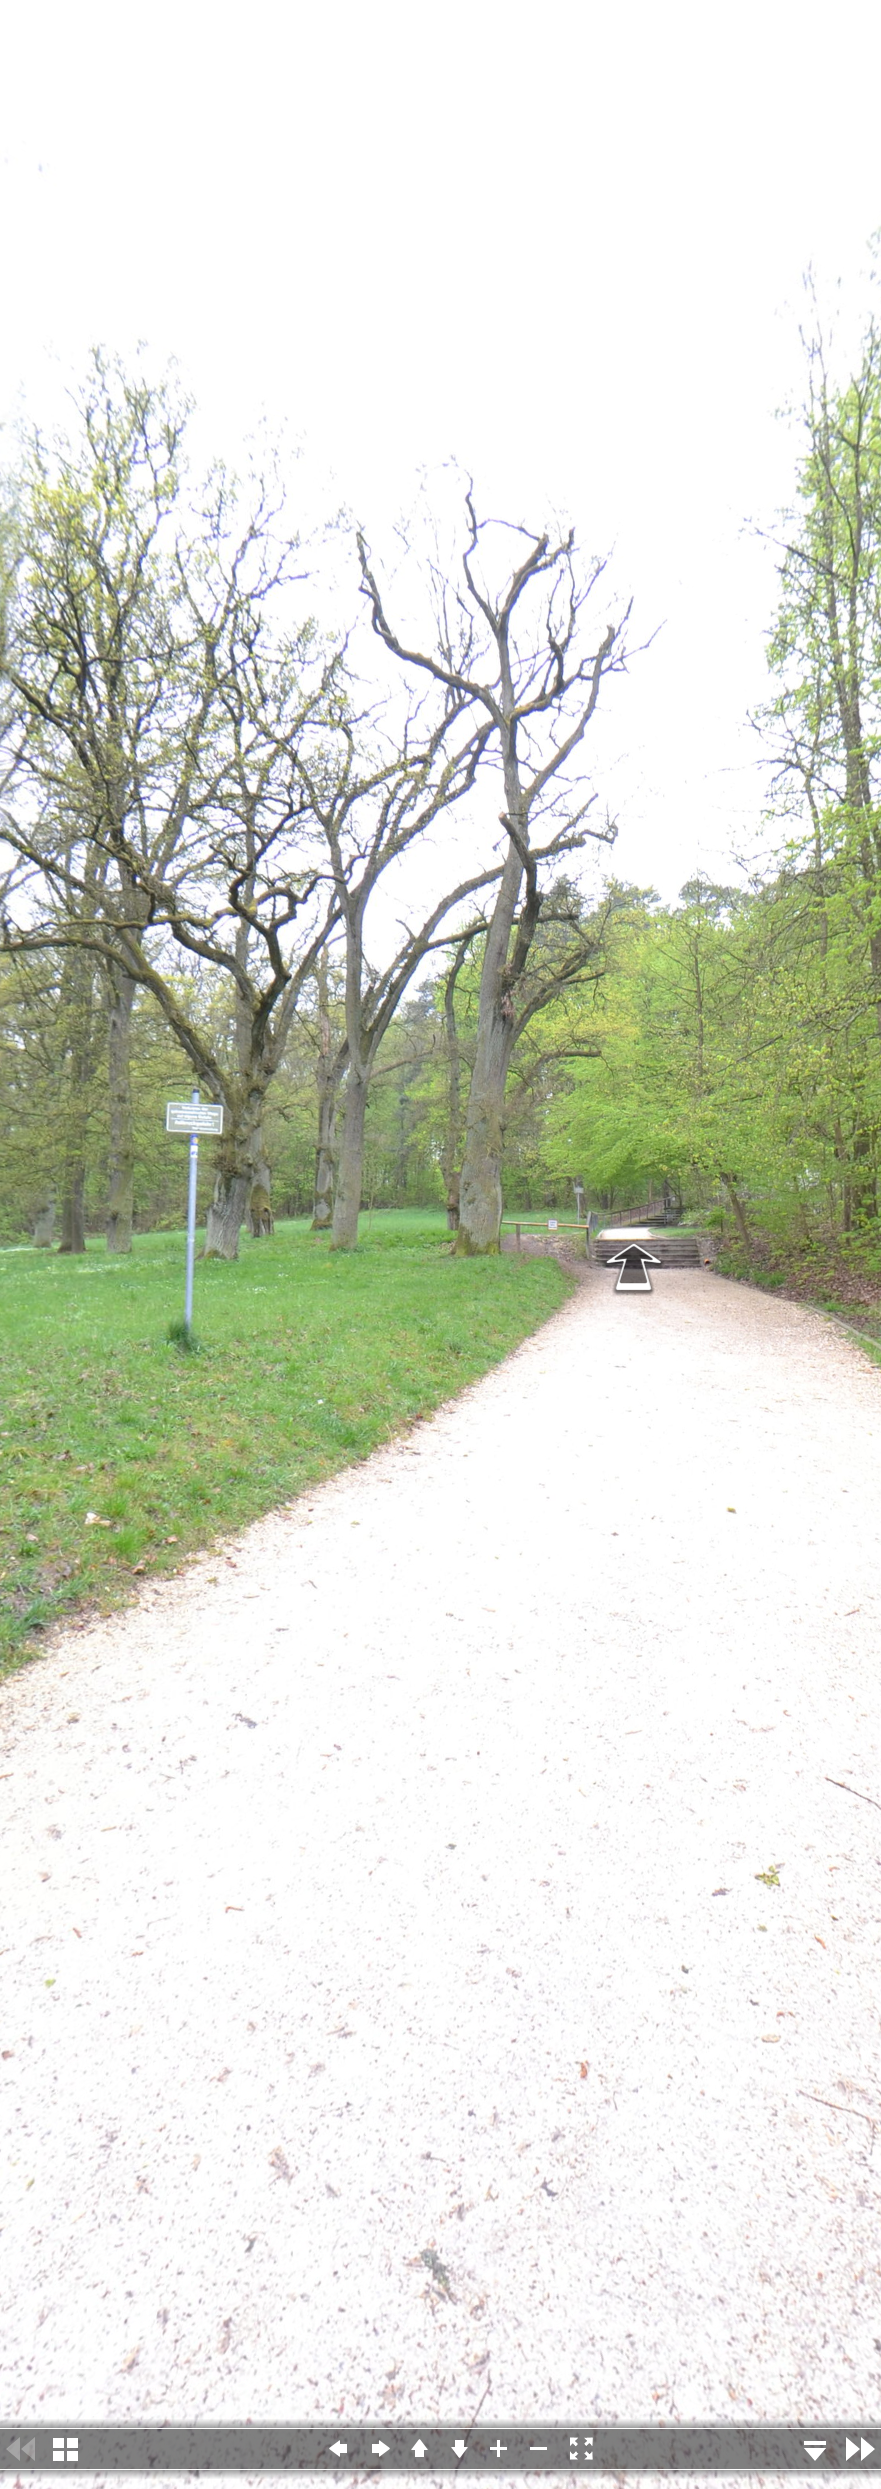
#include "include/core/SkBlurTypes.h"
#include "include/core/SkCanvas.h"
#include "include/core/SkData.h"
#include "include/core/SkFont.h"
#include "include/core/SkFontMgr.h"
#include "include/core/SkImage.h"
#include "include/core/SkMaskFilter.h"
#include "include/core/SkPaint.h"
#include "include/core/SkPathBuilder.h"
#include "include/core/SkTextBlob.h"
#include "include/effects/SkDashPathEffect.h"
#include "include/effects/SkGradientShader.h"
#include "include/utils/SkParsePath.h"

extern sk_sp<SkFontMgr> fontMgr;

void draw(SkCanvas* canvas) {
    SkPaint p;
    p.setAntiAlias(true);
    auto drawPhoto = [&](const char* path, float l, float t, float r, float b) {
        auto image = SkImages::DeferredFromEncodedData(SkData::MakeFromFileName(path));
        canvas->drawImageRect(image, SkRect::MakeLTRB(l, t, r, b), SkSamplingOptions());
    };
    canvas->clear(0xFFFFFFFF);
    drawPhoto("media/1.png", 0, 0, 881, 2489);
    drawPhoto("media/2.png", 602, 1242, 665, 1296);
    drawPhoto("media/3.png", 0, 2419, 881, 2429);
    p.setColor(0x80000000);
    canvas->drawRect(SkRect::MakeLTRB(0, 2429, 881, 2469), p);
    drawPhoto("media/4.png", 6, 2437, 35, 2461);
    drawPhoto("media/5.png", 53, 2438, 78, 2461);
    drawPhoto("media/6.png", 329, 2440, 347, 2457);
    drawPhoto("media/7.png", 372, 2440, 390, 2457);
    drawPhoto("media/8.png", 411, 2439, 428, 2457);
    drawPhoto("media/9.png", 451, 2440, 468, 2458);
    drawPhoto("media/10.png", 490, 2440, 507, 2457);
    p.setColor(0xFFFFFFFF);
    canvas->drawRect(SkRect::MakeLTRB(530, 2447, 547, 2450), p);
    drawPhoto("media/11.png", 570, 2437, 593, 2460);
    drawPhoto("media/12.png", 804, 2441, 826, 2461);
    drawPhoto("media/13.png", 846, 2437, 875, 2461);
    drawPhoto("media/14.png", 0, 2469, 881, 2479);
}
